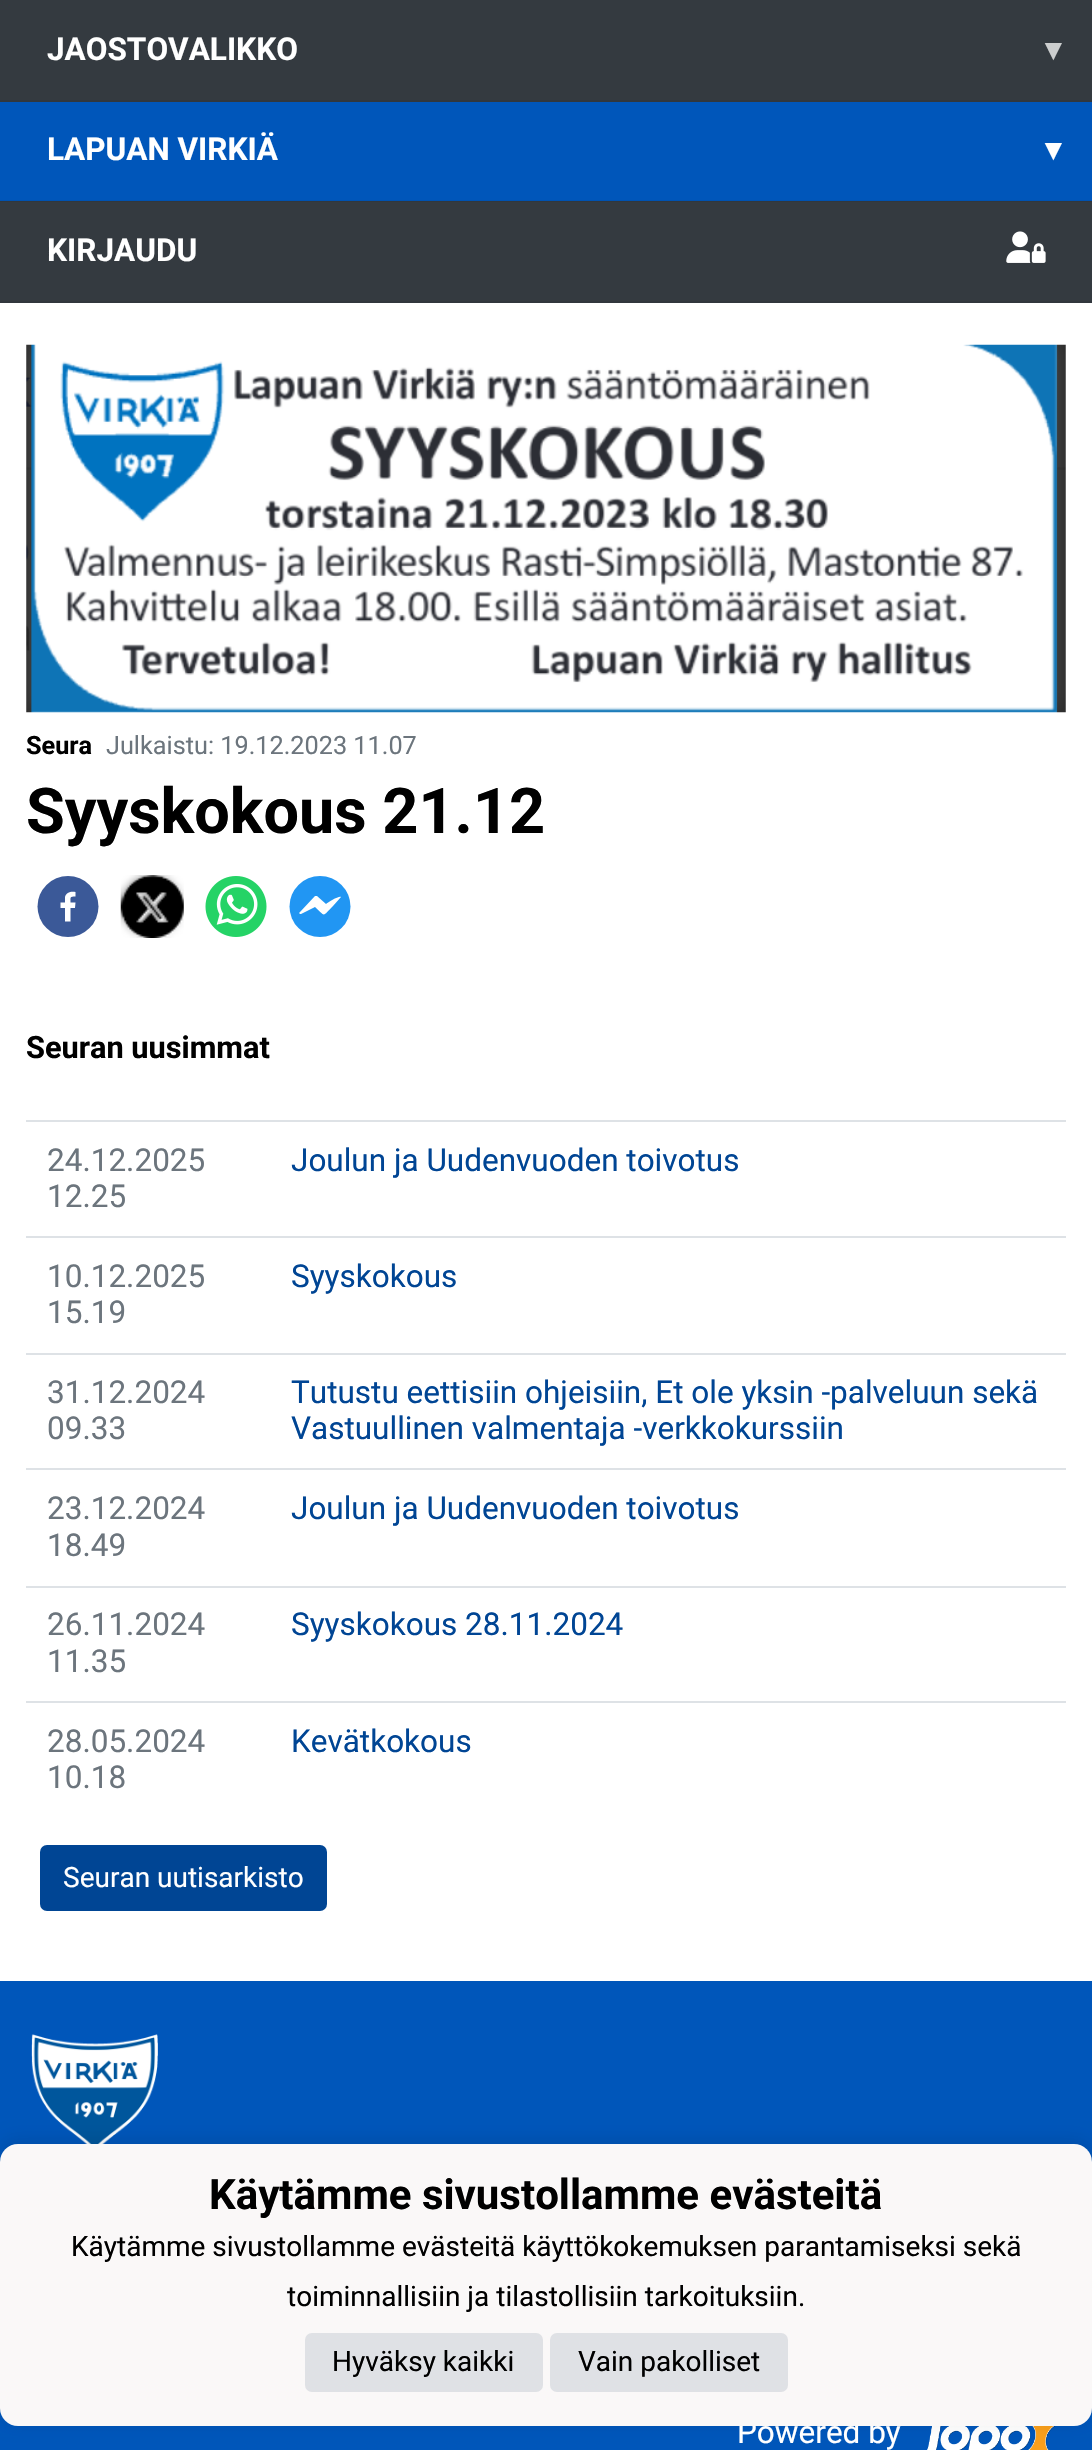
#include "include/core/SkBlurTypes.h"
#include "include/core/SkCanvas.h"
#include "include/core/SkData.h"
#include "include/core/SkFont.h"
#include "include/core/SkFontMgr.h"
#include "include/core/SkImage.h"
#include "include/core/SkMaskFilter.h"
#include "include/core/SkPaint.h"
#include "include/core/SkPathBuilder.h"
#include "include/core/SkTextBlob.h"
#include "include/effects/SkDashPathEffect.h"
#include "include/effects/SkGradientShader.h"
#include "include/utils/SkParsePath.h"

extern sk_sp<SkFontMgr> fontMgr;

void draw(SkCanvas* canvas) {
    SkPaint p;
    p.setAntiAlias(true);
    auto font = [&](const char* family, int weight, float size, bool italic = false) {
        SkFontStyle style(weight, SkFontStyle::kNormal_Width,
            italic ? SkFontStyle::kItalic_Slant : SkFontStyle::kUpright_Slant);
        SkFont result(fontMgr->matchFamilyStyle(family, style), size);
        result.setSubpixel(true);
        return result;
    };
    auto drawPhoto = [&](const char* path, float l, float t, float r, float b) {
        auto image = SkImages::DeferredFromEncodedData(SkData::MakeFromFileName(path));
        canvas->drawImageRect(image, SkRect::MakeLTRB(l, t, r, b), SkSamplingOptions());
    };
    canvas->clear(0xFFFFFFFF);
    p.setColor(0xFF343A40);
    canvas->drawRect(SkRect::MakeLTRB(0, 0, 1092, 100), p);
    p.setColor(0xFF31373D);
    canvas->drawRect(SkRect::MakeLTRB(0, 100, 1092, 102), p);
    auto font1 = font("Roboto", 700, 31.5f);
    p.setColor(0xFFFFFFFF);
    canvas->drawString("JAOSTOVALIKKO", 47, 60, font1, p);
    auto font2 = font("DejaVu Sans", 700, 31.5f);
    p.setColor(0xFFCCCECF);
    canvas->drawString("▾", 1045, 60, font2, p);
    p.setColor(0xFF0056BA);
    canvas->drawRect(SkRect::MakeLTRB(0, 102, 1092, 200), p);
    p.setColor(0xFF0052B1);
    canvas->drawRect(SkRect::MakeLTRB(0, 200, 1092, 201), p);
    p.setColor(0xFFFFFFFF);
    canvas->drawString("LAPUAN VIRKIÄ", 47, 160, font1, p);
    canvas->drawString("▾", 1045, 160, font2, p);
    {
        const struct { float l, t, r, b; SkColor color; } items[] = {
            {0, 202, 1092, 301, 0xFF343A40},
            {0, 201, 1092, 202, 0xFF31373D},
            {0, 301, 1092, 303, 0xFF31373D},
        };
        for (auto [l, t, r, b, color] : items) {
            p.setColor(color);
            canvas->drawRect(SkRect::MakeLTRB(l, t, r, b), p);
        }
    }
    p.setColor(0xFFFFFFFF);
    canvas->drawString("KIRJAUDU", 47, 261, font1, p);
    drawPhoto("media/1.png", 1006, 231, 1046, 263);
    drawPhoto("media/2.png", 26, 344, 1066, 713);
    auto font3 = font("Roboto", 700, 25.25f);
    p.setColor(0xFF000000);
    canvas->drawString("Seura", 26, 754, font3, p);
    auto font4 = font("Roboto", 400, 25.25f);
    p.setColor(0xFF6C757D);
    canvas->drawString("Julkaistu: 19.12.2023 11.07", 106, 754, font4, p);
    auto font5 = font("Roboto", 700, 63);
    p.setColor(0xFF000000);
    canvas->drawString("Syyskokous 21.12", 26, 833, font5, p);
    p.setColor(0xFF3B5998);
    canvas->drawCircle(68, 906.5f, 30.5f, p);
    p.setColor(0xFFFFFFFF);
    canvas->drawPath(SkPathBuilder().moveTo(70.5f, 921.5f).lineTo(70.5f, 908).lineTo(75, 908).lineTo(75.5f, 902.5f).lineTo(70.5f, 902.5f).cubicTo(70.5f, 897, 69.5f, 896.5f, 75.5f, 896.5f).lineTo(75.5f, 892).cubicTo(71.5f, 891, 66, 892, 65, 897).lineTo(65, 902.5f).lineTo(60.5f, 902.5f).lineTo(60.5f, 908).lineTo(65, 908).lineTo(65, 921.5f).close().detach(), p);
    drawPhoto("media/3.png", 120, 875, 184, 938);
    drawPhoto("media/4.png", 205, 876, 267, 937);
    p.setColor(0xFF2196F3);
    canvas->drawCircle(320, 906.5f, 30.5f, p);
    p.setColor(0xFFFFFFFF);
    canvas->drawPath(SkPathBuilder().moveTo(341, 897).cubicTo(340, 895, 328, 902, 326, 904).lineTo(317, 896).cubicTo(317, 896, 316, 896, 315, 896).lineTo(300, 912).cubicTo(299, 913, 299, 913, 300, 914).lineTo(301, 914).lineTo(315, 907).cubicTo(326, 917, 322, 917, 333, 906).close().detach(), p);
    auto font6 = font("Roboto", 700, 30.75f);
    p.setColor(0xFF000000);
    canvas->drawString("Seuran uusimmat", 26, 1058, font6, p);
    auto font7 = font("Roboto", 400, 31.5f);
    p.setColor(0xFF6C757D);
    canvas->drawString("24.12.2025", 47, 1171, font7, p);
    canvas->drawString("12.25", 47, 1207, font7, p);
    p.setColor(0xFFDEE2E6);
    canvas->drawRect(SkRect::MakeLTRB(26, 1120, 1066, 1122), p);
    p.setColor(0xFF004594);
    canvas->drawString("Joulun ja Uudenvuoden toivotus", 291, 1171, font7, p);
    p.setColor(0xFF6C757D);
    canvas->drawString("10.12.2025", 47, 1287, font7, p);
    canvas->drawString("15.19", 47, 1323, font7, p);
    p.setColor(0xFFDEE2E6);
    canvas->drawRect(SkRect::MakeLTRB(26, 1236, 1066, 1238), p);
    p.setColor(0xFF004594);
    canvas->drawString("Syyskokous", 291, 1287, font7, p);
    p.setColor(0xFF6C757D);
    canvas->drawString("31.12.2024", 47, 1403, font7, p);
    canvas->drawString("09.33", 47, 1439, font7, p);
    p.setColor(0xFFDEE2E6);
    canvas->drawRect(SkRect::MakeLTRB(26, 1353, 1066, 1355), p);
    p.setColor(0xFF004594);
    canvas->drawString("Tutustu eettisiin ohjeisiin, Et ole yksin -palveluun sekä", 291, 1403, font7, p);
    canvas->drawString("Vastuullinen valmentaja -verkkokurssiin", 291, 1439, font7, p);
    p.setColor(0xFF6C757D);
    canvas->drawString("23.12.2024", 47, 1519, font7, p);
    canvas->drawString("18.49", 47, 1556, font7, p);
    p.setColor(0xFFDEE2E6);
    canvas->drawRect(SkRect::MakeLTRB(26, 1468, 1066, 1470), p);
    p.setColor(0xFF004594);
    canvas->drawString("Joulun ja Uudenvuoden toivotus", 291, 1519, font7, p);
    p.setColor(0xFF6C757D);
    canvas->drawString("26.11.2024", 47, 1635, font7, p);
    canvas->drawString("11.35", 47, 1672, font7, p);
    p.setColor(0xFFDEE2E6);
    canvas->drawRect(SkRect::MakeLTRB(26, 1586, 1066, 1588), p);
    p.setColor(0xFF004594);
    canvas->drawString("Syyskokous 28.11.2024", 291, 1635, font7, p);
    p.setColor(0xFF6C757D);
    canvas->drawString("28.05.2024", 47, 1752, font7, p);
    canvas->drawString("10.18", 47, 1788, font7, p);
    p.setColor(0xFFDEE2E6);
    canvas->drawRect(SkRect::MakeLTRB(26, 1701, 1066, 1703), p);
    p.setColor(0xFF004594);
    canvas->drawString("Kevätkokous", 291, 1752, font7, p);
    canvas->drawRoundRect(SkRect::MakeLTRB(40, 1845, 327, 1911), 7, 7, p);
    auto font8 = font("Roboto", 400, 28);
    p.setColor(0xFFFFFFFF);
    canvas->drawString("Seuran uutisarkisto", 63, 1887, font8, p);
    p.setColor(0xFF0056BA);
    canvas->drawRect(SkRect::MakeLTRB(0, 1981, 1092, 2450), p);
    drawPhoto("media/5.png", 31, 2034, 158, 2144);
    drawPhoto("media/6.png", 927, 2426, 1055, 2450);
    p.setColor(0x1A000000);
    p.setMaskFilter(SkMaskFilter::MakeBlur(kNormal_SkBlurStyle, 9));
    canvas->drawRoundRect(SkRect::MakeLTRB(0, 2140, 1092, 2422), 18, 18, p);
    p.setMaskFilter(nullptr);
    p.setColor(0xFFFFFFFF);
    canvas->drawString("Powered by", 737, 2443, font7, p);
    p.setColor(0xFFFAF8F8);
    canvas->drawRoundRect(SkRect::MakeLTRB(0, 2144, 1092, 2426), 18, 18, p);
    auto font9 = font("Roboto", 700, 42);
    p.setColor(0xFF000000);
    canvas->drawString("Käytämme sivustollamme evästeitä", 209, 2209, font9, p);
    canvas->drawString("Käytämme sivustollamme evästeitä käyttökokemuksen parantamiseksi sekä", 71, 2256, font8, p);
    canvas->drawString("toiminnallisiin ja tilastollisiin tarkoituksiin.", 287, 2306, font8, p);
    p.setColor(0xFFDFE1E5);
    canvas->drawRoundRect(SkRect::MakeLTRB(305, 2333, 543, 2392), 7, 7, p);
    p.setColor(0xFF000000);
    canvas->drawString("Hyväksy kaikki", 332, 2371, font8, p);
    p.setColor(0xFFDFE1E5);
    canvas->drawRoundRect(SkRect::MakeLTRB(550, 2333, 788, 2392), 7, 7, p);
    p.setColor(0xFF000000);
    canvas->drawString("Vain pakolliset", 578, 2371, font8, p);
}
